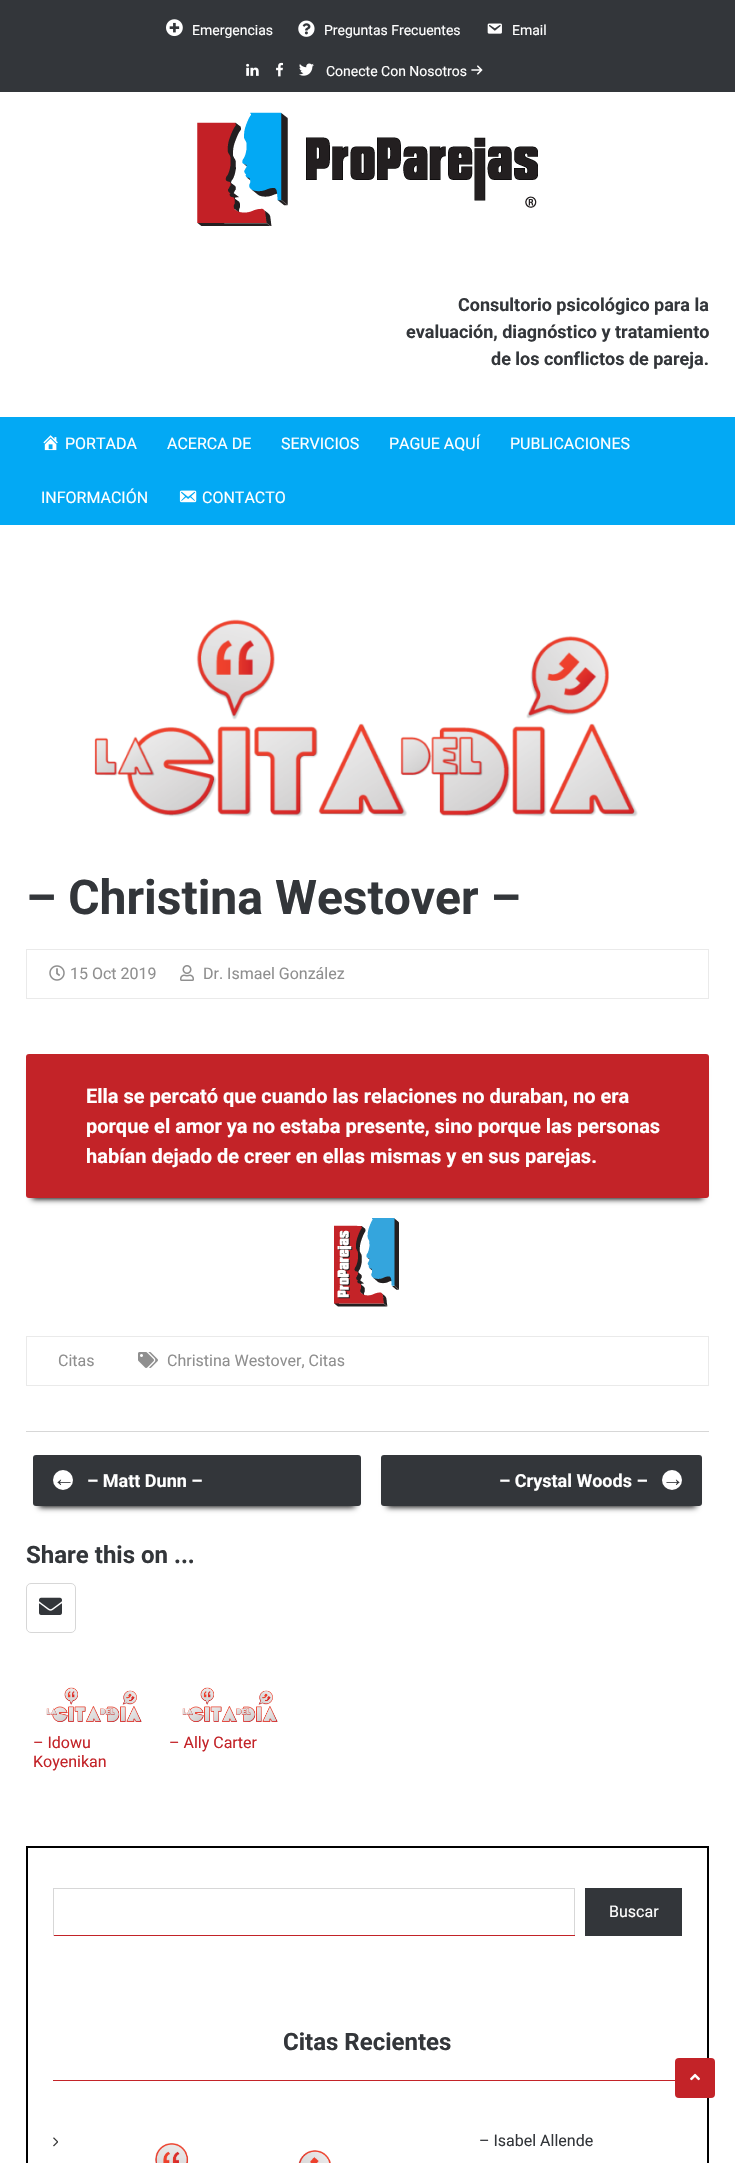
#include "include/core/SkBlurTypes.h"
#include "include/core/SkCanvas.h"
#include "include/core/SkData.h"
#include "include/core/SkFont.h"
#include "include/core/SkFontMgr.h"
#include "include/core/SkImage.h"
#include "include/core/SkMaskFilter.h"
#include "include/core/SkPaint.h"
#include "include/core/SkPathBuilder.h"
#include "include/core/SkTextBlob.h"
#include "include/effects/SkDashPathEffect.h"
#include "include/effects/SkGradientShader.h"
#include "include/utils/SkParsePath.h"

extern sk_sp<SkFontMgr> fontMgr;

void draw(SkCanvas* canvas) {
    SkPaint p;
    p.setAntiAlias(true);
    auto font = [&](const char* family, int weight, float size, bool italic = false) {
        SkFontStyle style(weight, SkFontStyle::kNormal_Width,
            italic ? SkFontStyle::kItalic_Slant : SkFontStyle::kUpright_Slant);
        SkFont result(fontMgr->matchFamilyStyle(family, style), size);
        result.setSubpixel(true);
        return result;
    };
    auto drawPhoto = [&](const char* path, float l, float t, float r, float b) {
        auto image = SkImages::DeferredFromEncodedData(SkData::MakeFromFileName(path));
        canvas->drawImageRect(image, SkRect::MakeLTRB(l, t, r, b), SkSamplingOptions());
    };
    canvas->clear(0xFFFFFFFF);
    p.setColor(0xFF33363A);
    canvas->drawRect(SkRect::MakeLTRB(0, 0, 735, 92), p);
    drawPhoto("media/1.png", 166, 19, 183, 37);
    auto font1 = font("Roboto", 400, 14);
    p.setColor(0xFFFFFFFF);
    canvas->drawString("Emergencias", 192, 35, font1, p);
    drawPhoto("media/2.png", 298, 20, 315, 37);
    canvas->drawString("Preguntas Frecuentes", 324, 35, font1, p);
    drawPhoto("media/3.png", 487, 23, 502, 34);
    canvas->drawString("Email", 512, 35, font1, p);
    drawPhoto("media/4.png", 246, 63, 259, 76);
    drawPhoto("media/5.png", 276, 62, 283, 77);
    drawPhoto("media/6.png", 299, 63, 314, 76);
    canvas->drawString("Conecte Con Nosotros", 326, 76, font1, p);
    drawPhoto("media/7.png", 471, 65, 483, 75);
    drawPhoto("media/8.png", 197, 112, 538, 226);
    auto font2 = font("Roboto", 700, 18);
    p.setColor(0xFF33363A);
    {
        const struct { const char* s; float x, y; } items[] = {
            {"Consultorio psicológico para la", 458, 311},
            {"evaluación, diagnóstico y tratamiento", 406, 338},
            {"de los conflictos de pareja.", 491, 365},
        };
        for (auto [s, x, y] : items) {
            canvas->drawString(s, x, y, font2, p);
        }
    }
    p.setColor(0xFF03A9F4);
    canvas->drawRect(SkRect::MakeLTRB(0, 417, 735, 525), p);
    drawPhoto("media/9.png", 43, 435, 58, 451);
    auto font3 = font("Roboto", 400, 16);
    p.setColor(0xFFFFFFFF);
    {
        const struct { const char* s; float x, y; } items[] = {
            {"PORTADA", 65, 449},
            {"ACERCA DE", 167, 449},
            {"SERVICIOS", 281, 449},
            {"PAGUE AQUÍ", 389, 449},
            {"PUBLICACIONES", 510, 449},
            {"INFORMACIÓN", 41, 503},
        };
        for (auto [s, x, y] : items) {
            canvas->drawString(s, x, y, font3, p);
        }
    }
    drawPhoto("media/10.png", 179, 490, 197, 503);
    canvas->drawString("CONTACTO", 202, 503, font3, p);
    p.setColor(0xFFD7D7D7);
    canvas->drawRect(SkRect::MakeLTRB(26, 1431, 709, 1432), p);
    drawPhoto("media/11.png", 94, 619, 638, 817);
    auto font4 = font("Roboto", 700, 48);
    p.setColor(0xFF33363A);
    canvas->drawString("– Christina Westover –", 26, 914, font4, p);
    p.setStyle(SkPaint::kStroke_Style);
    p.setStrokeWidth(1);
    p.setColor(0xFFEAEAEA);
    canvas->drawRect(SkRect::MakeLTRB(26.5f, 949.5f, 708.5f, 998.5f), p);
    drawPhoto("media/12.png", 49, 965, 65, 981);
    p.setStyle(SkPaint::kFill_Style);
    p.setColor(0xFF8F8F8F);
    canvas->drawString("15 Oct 2019", 70, 979, font3, p);
    drawPhoto("media/13.png", 180, 965, 194, 981);
    canvas->drawString("Dr. Ismael González", 203, 979, font3, p);
    p.setColor(0xFF000000);
    p.setMaskFilter(SkMaskFilter::MakeBlur(kNormal_SkBlurStyle, 3));
    canvas->drawRect(SkRect::MakeLTRB(32, 1067, 703, 1199), p);
    p.setMaskFilter(nullptr);
    p.setColor(0xFFC32328);
    canvas->drawRoundRect(SkRect::MakeLTRB(26, 1054, 709, 1198), 3, 3, p);
    auto font5 = font("Roboto", 700, 20);
    p.setColor(0xFFFFFFFF);
    {
        const struct { const char* s; float x, y; } items[] = {
            {"Ella se percató que cuando las relaciones no duraban, no era", 86, 1103},
            {"porque el amor ya no estaba presente, sino porque las personas", 86, 1133},
            {"habían dejado de creer en ellas mismas y en sus parejas.", 86, 1163},
        };
        for (auto [s, x, y] : items) {
            canvas->drawString(s, x, y, font5, p);
        }
    }
    drawPhoto("media/14.png", 334, 1218, 399, 1307);
    p.setStyle(SkPaint::kStroke_Style);
    p.setColor(0xFFEAEAEA);
    canvas->drawRect(SkRect::MakeLTRB(26.5f, 1336.5f, 708.5f, 1385.5f), p);
    p.setStyle(SkPaint::kFill_Style);
    p.setColor(0xFF8F8F8F);
    canvas->drawString("Citas", 58, 1366, font3, p);
    drawPhoto("media/15.png", 138, 1352, 158, 1368);
    canvas->drawString("Christina Westover, Citas", 167, 1366, font3, p);
    p.setColor(0xFF000000);
    p.setMaskFilter(SkMaskFilter::MakeBlur(kNormal_SkBlurStyle, 3));
    canvas->drawRect(SkRect::MakeLTRB(39, 1468, 355, 1507), p);
    p.setMaskFilter(nullptr);
    p.setColor(0xFF33363A);
    canvas->drawRoundRect(SkRect::MakeLTRB(33, 1455, 361, 1506), 3, 3, p);
    p.setColor(0xFFFFFFFF);
    canvas->drawCircle(63, 1480, 10, p);
    auto font6 = font("Liberation Sans", 700, 22);
    p.setColor(0xFF33363A);
    canvas->drawString("←", 53, 1486, font6, p);
    p.setColor(0xFFFFFFFF);
    canvas->drawString("– Matt Dunn –", 87, 1487, font2, p);
    p.setColor(0xFF000000);
    p.setMaskFilter(SkMaskFilter::MakeBlur(kNormal_SkBlurStyle, 3));
    canvas->drawRect(SkRect::MakeLTRB(387, 1468, 696, 1507), p);
    p.setMaskFilter(nullptr);
    p.setColor(0xFF33363A);
    canvas->drawRoundRect(SkRect::MakeLTRB(381, 1455, 702, 1506), 3, 3, p);
    p.setColor(0xFFFFFFFF);
    canvas->drawString("– Crystal Woods –", 499, 1487, font2, p);
    canvas->drawCircle(672, 1480, 10, p);
    p.setColor(0xFF33363A);
    canvas->drawString("→", 662, 1486, font6, p);
    auto font7 = font("Roboto", 700, 24);
    canvas->drawString("Share this on ...", 26, 1563, font7, p);
    p.setStyle(SkPaint::kStroke_Style);
    p.setColor(0xFFD7D7D7);
    canvas->drawRoundRect(SkRect::MakeLTRB(26.5f, 1583.5f, 75.5f, 1632.5f), 4.5f, 4.5f, p);
    drawPhoto("media/16.png", 39, 1597, 62, 1615);
    drawPhoto("media/17.png", 46, 1687, 142, 1722);
    p.setStyle(SkPaint::kFill_Style);
    p.setColor(0xFFC32328);
    canvas->drawString("– Idowu", 33, 1748, font3, p);
    canvas->drawString("Koyenikan", 33, 1767, font3, p);
    drawPhoto("media/18.png", 182, 1687, 278, 1722);
    canvas->drawString("– Ally Carter", 169, 1748, font3, p);
    p.setStyle(SkPaint::kStroke_Style);
    p.setStrokeWidth(2);
    p.setColor(0xFF000000);
    canvas->drawRect(SkRect::MakeLTRB(27, 1847, 708, 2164), p);
    p.setStyle(SkPaint::kFill_Style);
    {
        const struct { float l, t, r, b; SkColor color; } items[] = {
            {53, 1888, 575, 1889, 0xFFD7D7D7},
            {574, 1888, 575, 1936, 0xFFD7D7D7},
            {53, 1935, 575, 1936, 0xFFC32328},
            {53, 1888, 54, 1936, 0xFFD7D7D7},
            {585, 1888, 682, 1936, 0xFF33363A},
        };
        for (auto [l, t, r, b, color] : items) {
            p.setColor(color);
            canvas->drawRect(SkRect::MakeLTRB(l, t, r, b), p);
        }
    }
    p.setColor(0xFFFFFFFF);
    canvas->drawString("Buscar", 609, 1917, font3, p);
    p.setColor(0xFFC32328);
    canvas->drawRect(SkRect::MakeLTRB(53, 2080, 682, 2081), p);
    p.setColor(0xFF33363A);
    canvas->drawString("Citas Recientes", 283, 2050, font7, p);
    drawPhoto("media/19.png", 53, 2137, 58, 2147);
    canvas->drawString("– Isabel Allende", 479, 2146, font3, p);
    drawPhoto("media/20.png", 155, 2143, 331, 2163);
    p.setColor(0xFFC32328);
    canvas->drawRoundRect(SkRect::MakeLTRB(675, 2058, 715, 2098), 4, 4, p);
    drawPhoto("media/21.png", 690, 2073, 700, 2081);
}
